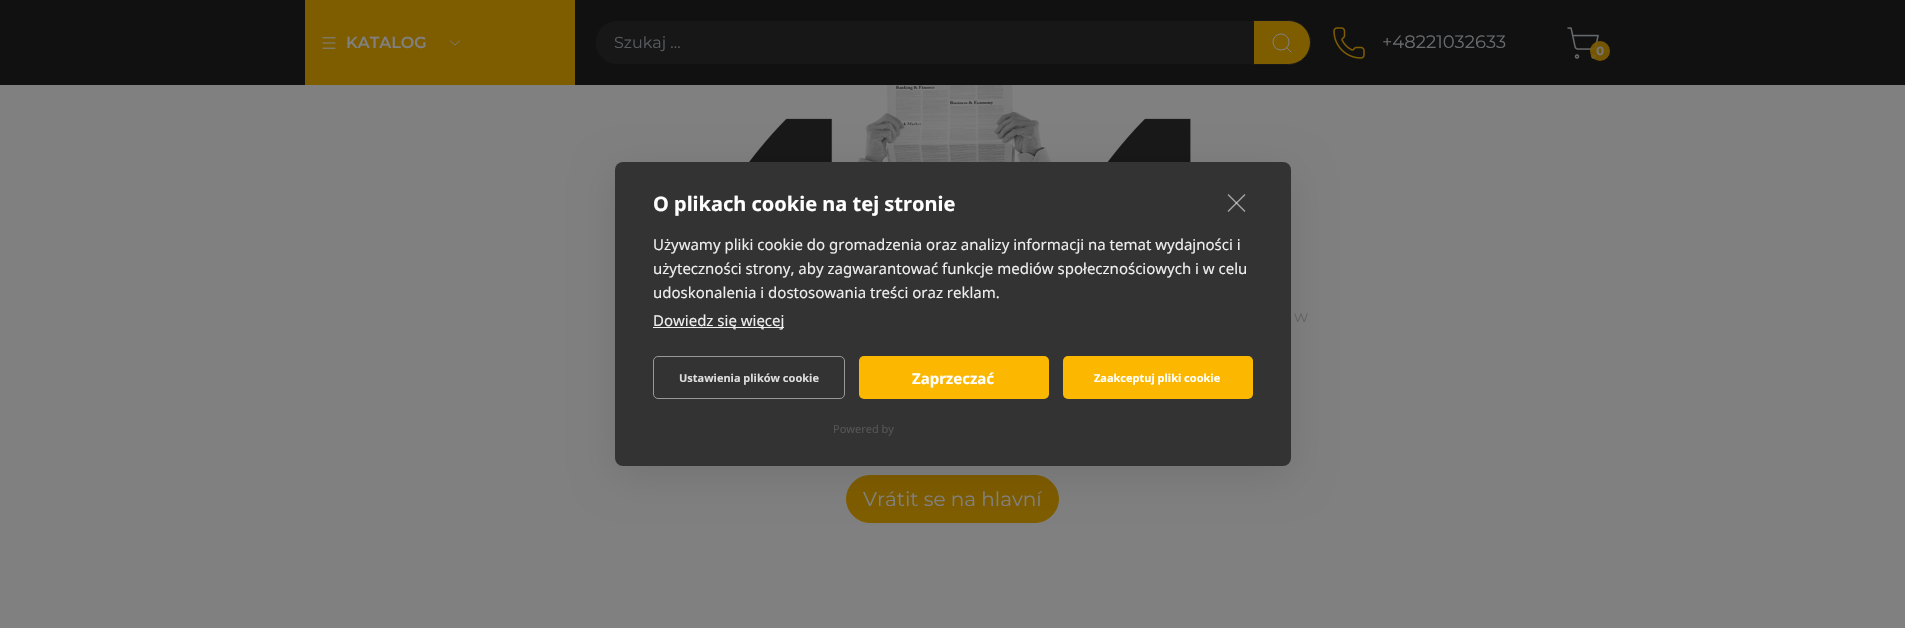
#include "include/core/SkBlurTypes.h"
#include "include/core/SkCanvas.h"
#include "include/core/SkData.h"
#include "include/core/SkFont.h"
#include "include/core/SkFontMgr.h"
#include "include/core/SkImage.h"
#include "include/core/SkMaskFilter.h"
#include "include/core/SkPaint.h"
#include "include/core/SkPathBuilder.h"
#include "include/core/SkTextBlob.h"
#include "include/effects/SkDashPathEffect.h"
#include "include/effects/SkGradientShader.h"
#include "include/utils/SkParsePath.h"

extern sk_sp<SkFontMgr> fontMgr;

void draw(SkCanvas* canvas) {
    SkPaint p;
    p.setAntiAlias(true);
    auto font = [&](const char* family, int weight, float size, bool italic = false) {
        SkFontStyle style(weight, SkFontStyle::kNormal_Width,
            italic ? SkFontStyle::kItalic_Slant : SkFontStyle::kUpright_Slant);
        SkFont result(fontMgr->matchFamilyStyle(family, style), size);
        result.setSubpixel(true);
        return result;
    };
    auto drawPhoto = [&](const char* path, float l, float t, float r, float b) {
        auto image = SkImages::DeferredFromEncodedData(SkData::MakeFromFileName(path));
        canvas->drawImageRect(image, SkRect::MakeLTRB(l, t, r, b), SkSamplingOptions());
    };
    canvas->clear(0xFF808080);
    p.setColor(0xFF111111);
    canvas->drawRect(SkRect::MakeLTRB(0, 0, 1905, 85), p);
    p.setColor(0xFF7E5C00);
    canvas->drawRect(SkRect::MakeLTRB(305, 0, 575, 85), p);
    drawPhoto("media/1.png", 322, 37, 336, 49);
    auto font1 = font("Montserrat", 600, 16);
    p.setColor(0xFF808080);
    canvas->drawString("KATALOG", 346, 48, font1, p);
    p.setStyle(SkPaint::kStroke_Style);
    p.setStrokeWidth(0.8f);
    p.setStrokeCap(SkPaint::kRound_Cap);
    p.setStrokeJoin(SkPaint::kRound_Join);
    canvas->drawPath(SkPathBuilder().moveTo(450.5f, 41).lineTo(455, 45).lineTo(459.5f, 41).detach(), p);
    auto font2 = font("Montserrat", 400, 16);
    p.setStyle(SkPaint::kFill_Style);
    p.setColor(0xFF666666);
    canvas->drawString("w", 1294, 322, font2, p);
    drawPhoto("media/2.png", 1333, 27, 1365, 59);
    auto font3 = font("Montserrat", 400, 18);
    p.setColor(0xFF676A6D);
    canvas->drawString("+48221032633", 1382, 48, font3, p);
    drawPhoto("media/3.png", 1567, 27, 1599, 59);
    p.setColor(0xE67E5C00);
    canvas->drawCircle(1600, 51, 10, p);
    auto font4 = font("Montserrat", 700, 12);
    p.setColor(0xFF757575);
    canvas->drawString("0", 1596, 55, font4, p);
    p.setColor(0xFF171717);
    canvas->drawPath(SkPathBuilder().moveTo(617.5f, 21).lineTo(1253, 21).lineTo(1253, 64).lineTo(617.5f, 64).cubicTo(605.5f, 64, 596, 54.5f, 596, 42.5f).cubicTo(596, 30.5f, 605.5f, 21, 617.5f, 21).close().detach(), p);
    p.setColor(0xFF575B5F);
    canvas->drawString("Szukaj ...", 614, 48, font2, p);
    p.setColor(0xFF7E5C00);
    canvas->drawPath(SkPathBuilder().moveTo(1253.5f, 20.5f).lineTo(1288.5f, 20.5f).cubicTo(1300.5f, 20.5f, 1310.5f, 30.5f, 1310.5f, 42.5f).cubicTo(1310.5f, 54.5f, 1300.5f, 64.5f, 1288.5f, 64.5f).lineTo(1253.5f, 64.5f).close().detach(), p);
    p.setStyle(SkPaint::kStroke_Style);
    p.setStrokeWidth(1);
    p.setStrokeCap(SkPaint::kButt_Cap);
    p.setStrokeJoin(SkPaint::kMiter_Join);
    p.setColor(0xFF171717);
    canvas->drawPath(SkPathBuilder().moveTo(1253.5f, 20.5f).lineTo(1288.5f, 20.5f).cubicTo(1300.5f, 20.5f, 1310.5f, 30.5f, 1310.5f, 42.5f).cubicTo(1310.5f, 54.5f, 1300.5f, 64.5f, 1288.5f, 64.5f).lineTo(1253.5f, 64.5f).close().detach(), p);
    p.setStrokeCap(SkPaint::kRound_Cap);
    p.setStrokeJoin(SkPaint::kRound_Join);
    p.setColor(0xFF808080);
    canvas->drawPath(SkPathBuilder().moveTo(1291, 52).lineTo(1286.5f, 47.5f).detach(), p);
    p.setStrokeCap(SkPaint::kButt_Cap);
    p.setStrokeJoin(SkPaint::kMiter_Join);
    canvas->drawCircle(1281, 42, 8, p);
    drawPhoto("media/4.png", 749, 85, 1191, 162);
    p.setStyle(SkPaint::kFill_Style);
    p.setColor(0xFF7E5C00);
    canvas->drawRoundRect(SkRect::MakeLTRB(846.5f, 475.5f, 1058.5f, 522.5f), 23.5f, 23.5f, p);
    p.setStyle(SkPaint::kStroke_Style);
    canvas->drawRoundRect(SkRect::MakeLTRB(846.5f, 475.5f, 1058.5f, 522.5f), 23.5f, 23.5f, p);
    p.setStyle(SkPaint::kFill_Style);
    p.setColor(0x1A000000);
    p.setMaskFilter(SkMaskFilter::MakeBlur(kNormal_SkBlurStyle, 20));
    canvas->drawRoundRect(SkRect::MakeLTRB(615, 172, 1291, 476), 8, 8, p);
    p.setMaskFilter(nullptr);
    p.setColor(0xFF333333);
    canvas->drawRoundRect(SkRect::MakeLTRB(615, 162, 1291, 466), 8, 8, p);
    p.setColor(0xFFA3A3A3);
    canvas->drawPath(SkPathBuilder().moveTo(1227.5f, 211).lineTo(1244.5f, 194).lineTo(1245.5f, 195).lineTo(1228.5f, 212).close().detach(), p);
    p.setColor(0x99EEEEEE);
    canvas->drawPath(SkPathBuilder().moveTo(1228.5f, 194).lineTo(1245.5f, 211).lineTo(1244.5f, 212).lineTo(1227.5f, 195).close().detach(), p);
    auto font5 = font("Noto Sans", 700, 20);
    p.setColor(0xFFFFFFFF);
    canvas->drawString("O plikach cookie na tej stronie", 653, 211, font5, p);
    auto font6 = font("Noto Sans", 400, 15);
    p.setColor(0xFFEEEEEE);
    {
        const struct { const char* s; float x, y; } items[] = {
            {"Używamy pliki cookie do gromadzenia oraz analizy informacji na temat wydajności i", 653, 250},
            {"użyteczności strony, aby zagwarantować funkcje mediów społecznościowych i w celu", 653, 274},
            {"udoskonalenia i dostosowania treści oraz reklam.", 653, 298},
        };
        for (auto [s, x, y] : items) {
            canvas->drawString(s, x, y, font6, p);
        }
    }
    canvas->drawRect(SkRect::MakeLTRB(653, 327, 784, 328), p);
    canvas->drawString("Dowiedz się więcej", 653, 326, font6, p);
    p.setStyle(SkPaint::kStroke_Style);
    p.setColor(0xFF999999);
    canvas->drawRoundRect(SkRect::MakeLTRB(653.5f, 356.5f, 844.5f, 398.5f), 4.5f, 4.5f, p);
    auto font7 = font("Noto Sans", 700, 11);
    p.setStyle(SkPaint::kFill_Style);
    p.setColor(0xFFDDDDDD);
    canvas->drawString("Ustawienia plików cookie", 679, 382, font7, p);
    p.setColor(0xFFFCB800);
    canvas->drawRoundRect(SkRect::MakeLTRB(859, 356, 1049, 399), 5, 5, p);
    auto font8 = font("Noto Sans", 700, 15);
    p.setColor(0xFFFFFFFF);
    canvas->drawString("Zaprzeczać", 912, 384, font8, p);
    p.setColor(0xFFFCB800);
    canvas->drawRoundRect(SkRect::MakeLTRB(1063, 356, 1253, 399), 5, 5, p);
    p.setColor(0xFFFFFFFF);
    canvas->drawString("Zaakceptuj pliki cookie", 1094, 382, font7, p);
    auto font9 = font("Noto Sans", 400, 11);
    p.setColor(0xFF555555);
    canvas->drawString("Powered by", 833, 433, font9, p);
    auto font10 = font("Montserrat", 400, 20);
    p.setColor(0xFF808080);
    canvas->drawString("Vrátit se na hlavní", 863, 506, font10, p);
}
